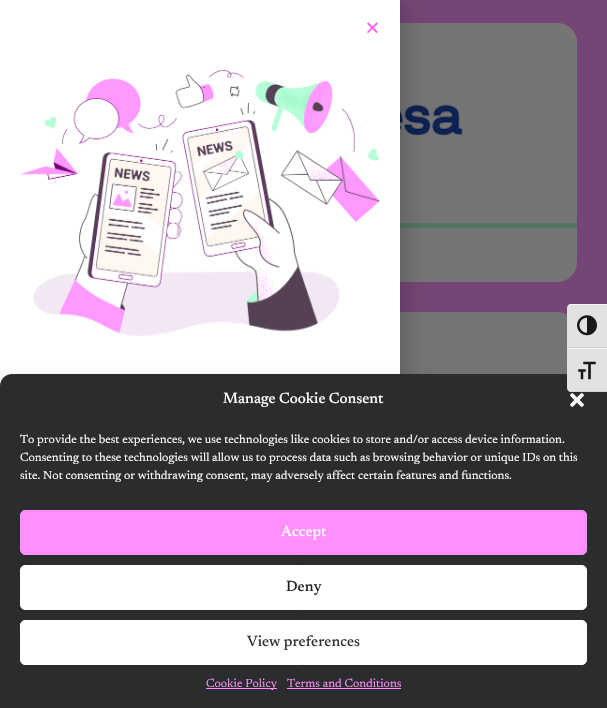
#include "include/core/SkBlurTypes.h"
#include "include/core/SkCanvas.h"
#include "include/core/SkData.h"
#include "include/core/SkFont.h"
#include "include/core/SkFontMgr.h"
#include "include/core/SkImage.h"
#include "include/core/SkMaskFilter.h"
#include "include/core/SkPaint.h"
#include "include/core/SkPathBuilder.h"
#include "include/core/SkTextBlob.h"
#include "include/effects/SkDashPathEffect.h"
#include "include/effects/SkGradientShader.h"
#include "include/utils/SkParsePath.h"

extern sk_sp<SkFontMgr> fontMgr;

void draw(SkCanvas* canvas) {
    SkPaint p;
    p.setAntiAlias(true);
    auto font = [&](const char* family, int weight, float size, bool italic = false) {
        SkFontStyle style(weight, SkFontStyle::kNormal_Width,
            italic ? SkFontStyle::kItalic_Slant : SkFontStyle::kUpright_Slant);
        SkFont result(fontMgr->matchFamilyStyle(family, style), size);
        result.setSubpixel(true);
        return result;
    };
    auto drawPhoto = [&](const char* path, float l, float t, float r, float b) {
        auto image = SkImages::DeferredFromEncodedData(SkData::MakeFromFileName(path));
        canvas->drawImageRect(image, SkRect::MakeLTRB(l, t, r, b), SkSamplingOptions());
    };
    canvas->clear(0xFF754675);
    p.setColor(0xFF757575);
    canvas->drawRoundRect(SkRect::MakeLTRB(30, 23, 577, 282), 20, 20, p);
    canvas->drawPath(SkPathBuilder().moveTo(50, 23).lineTo(557, 23).cubicTo(568, 23, 577, 32, 577, 43).lineTo(577, 223).lineTo(30, 223).lineTo(30, 43).cubicTo(30, 32, 39, 23, 50, 23).close().detach(), p);
    p.setColor(0xFF537563);
    canvas->drawRect(SkRect::MakeLTRB(400, 223, 577, 228), p);
    drawPhoto("media/3.png", 400, 95, 467, 139);
    p.setColor(0xFF757575);
    canvas->drawPath(SkPathBuilder().moveTo(50, 312).lineTo(557, 312).cubicTo(568, 312, 577, 321, 577, 332).lineTo(577, 512).lineTo(30, 512).lineTo(30, 332).cubicTo(30, 321, 39, 312, 50, 312).close().detach(), p);
    p.setColor(0x33000000);
    p.setMaskFilter(SkMaskFilter::MakeBlur(kNormal_SkBlurStyle, 11.5f));
    canvas->drawRect(SkRect::MakeLTRB(-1, 5, 405, 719), p);
    p.setMaskFilter(nullptr);
    p.setColor(0xFFFFFFFF);
    canvas->drawRect(SkRect::MakeLTRB(0, 0, 400, 386), p);
    drawPhoto("media/1.png", 367, 22, 378, 33);
    drawPhoto("media/2.png", 20, 70, 380, 336);
    p.setColor(0xFFE2E2E2);
    canvas->drawPath(SkPathBuilder().moveTo(571, 304).lineTo(607, 304).lineTo(607, 348).lineTo(567, 348).lineTo(567, 308).cubicTo(567, 306, 569, 304, 571, 304).close().detach(), p);
    p.setColor(0xFFF5F5F5);
    canvas->drawPath(SkPathBuilder().moveTo(571, 305).lineTo(607, 305).lineTo(607, 304).lineTo(571, 304).cubicTo(569, 304, 567, 306, 567, 308).cubicTo(567, 306, 569, 305, 571, 305).close().detach(), p);
    p.setColor(0xFFD2D2D2);
    canvas->drawRect(SkRect::MakeLTRB(567, 347, 607, 348), p);
    drawPhoto("media/4.png", 577, 315, 597, 336);
    p.setColor(0x30000000);
    p.setMaskFilter(SkMaskFilter::MakeBlur(kNormal_SkBlurStyle, 10));
    canvas->drawRoundRect(SkRect::MakeLTRB(0, 384, 607, 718), 12, 12, p);
    p.setMaskFilter(nullptr);
    p.setColor(0xFF2B2C2D);
    canvas->drawPath(SkPathBuilder().moveTo(12, 374).lineTo(595, 374).cubicTo(601.5f, 374, 607, 379.5f, 607, 386).lineTo(607, 708).lineTo(0, 708).lineTo(0, 386).cubicTo(0, 379.5f, 5.5f, 374, 12, 374).close().detach(), p);
    p.setColor(0xFFE2E2E2);
    canvas->drawPath(SkPathBuilder().moveTo(567, 348).lineTo(607, 348).lineTo(607, 392).lineTo(571, 392).cubicTo(569, 392, 567, 390, 567, 388).close().detach(), p);
    p.setColor(0xFFF5F5F5);
    canvas->drawRect(SkRect::MakeLTRB(567, 348, 607, 349), p);
    p.setColor(0xFFD2D2D2);
    canvas->drawPath(SkPathBuilder().moveTo(607, 392).lineTo(607, 391).lineTo(571, 391).cubicTo(569, 391, 567, 390, 567, 388).cubicTo(567, 390, 569, 392, 571, 392).close().detach(), p);
    drawPhoto("media/5.png", 578, 361, 596, 380);
    auto font1 = font("Newsreader", 500, 15);
    p.setColor(0xFFFFFFFF);
    canvas->drawString("Manage Cookie Consent", 223, 403, font1, p);
    drawPhoto("media/6.png", 570, 393, 584, 407);
    auto font2 = font("Newsreader", 400, 12);
    {
        const struct { const char* s; float x, y; } items[] = {
            {"To provide the best experiences, we use technologies like cookies to store and/or access device information.", 20, 443},
            {"Consenting to these technologies will allow us to process data such as browsing behavior or unique IDs on this", 20, 461},
            {"site. Not consenting or withdrawing consent, may adversely affect certain features and functions.", 20, 479},
        };
        for (auto [s, x, y] : items) {
            canvas->drawString(s, x, y, font2, p);
        }
    }
    p.setColor(0xFFFF8FFF);
    canvas->drawRoundRect(SkRect::MakeLTRB(20.5f, 510.5f, 586.5f, 554.5f), 4.5f, 4.5f, p);
    p.setStyle(SkPaint::kStroke_Style);
    p.setStrokeWidth(1);
    canvas->drawRoundRect(SkRect::MakeLTRB(20.5f, 510.5f, 586.5f, 554.5f), 4.5f, 4.5f, p);
    p.setStyle(SkPaint::kFill_Style);
    p.setColor(0xFFFFFFFF);
    canvas->drawString("Accept", 281, 536, font1, p);
    canvas->drawRoundRect(SkRect::MakeLTRB(20.5f, 565.5f, 586.5f, 609.5f), 4.5f, 4.5f, p);
    p.setStyle(SkPaint::kStroke_Style);
    canvas->drawRoundRect(SkRect::MakeLTRB(20.5f, 565.5f, 586.5f, 609.5f), 4.5f, 4.5f, p);
    p.setStyle(SkPaint::kFill_Style);
    p.setColor(0xFF222222);
    canvas->drawString("Deny", 286, 591, font1, p);
    p.setColor(0xFFFFFFFF);
    canvas->drawRoundRect(SkRect::MakeLTRB(20.5f, 620.5f, 586.5f, 664.5f), 4.5f, 4.5f, p);
    p.setStyle(SkPaint::kStroke_Style);
    canvas->drawRoundRect(SkRect::MakeLTRB(20.5f, 620.5f, 586.5f, 664.5f), 4.5f, 4.5f, p);
    p.setStyle(SkPaint::kFill_Style);
    p.setColor(0xFF333333);
    canvas->drawString("View preferences", 247, 646, font1, p);
    p.setColor(0xFFFF8FFF);
    canvas->drawRect(SkRect::MakeLTRB(206, 688, 277, 689), p);
    canvas->drawString("Cookie Policy", 206, 687, font2, p);
    canvas->drawString("Terms and Conditions", 287, 687, font2, p);
    canvas->drawRect(SkRect::MakeLTRB(287, 688, 401, 689), p);
}
